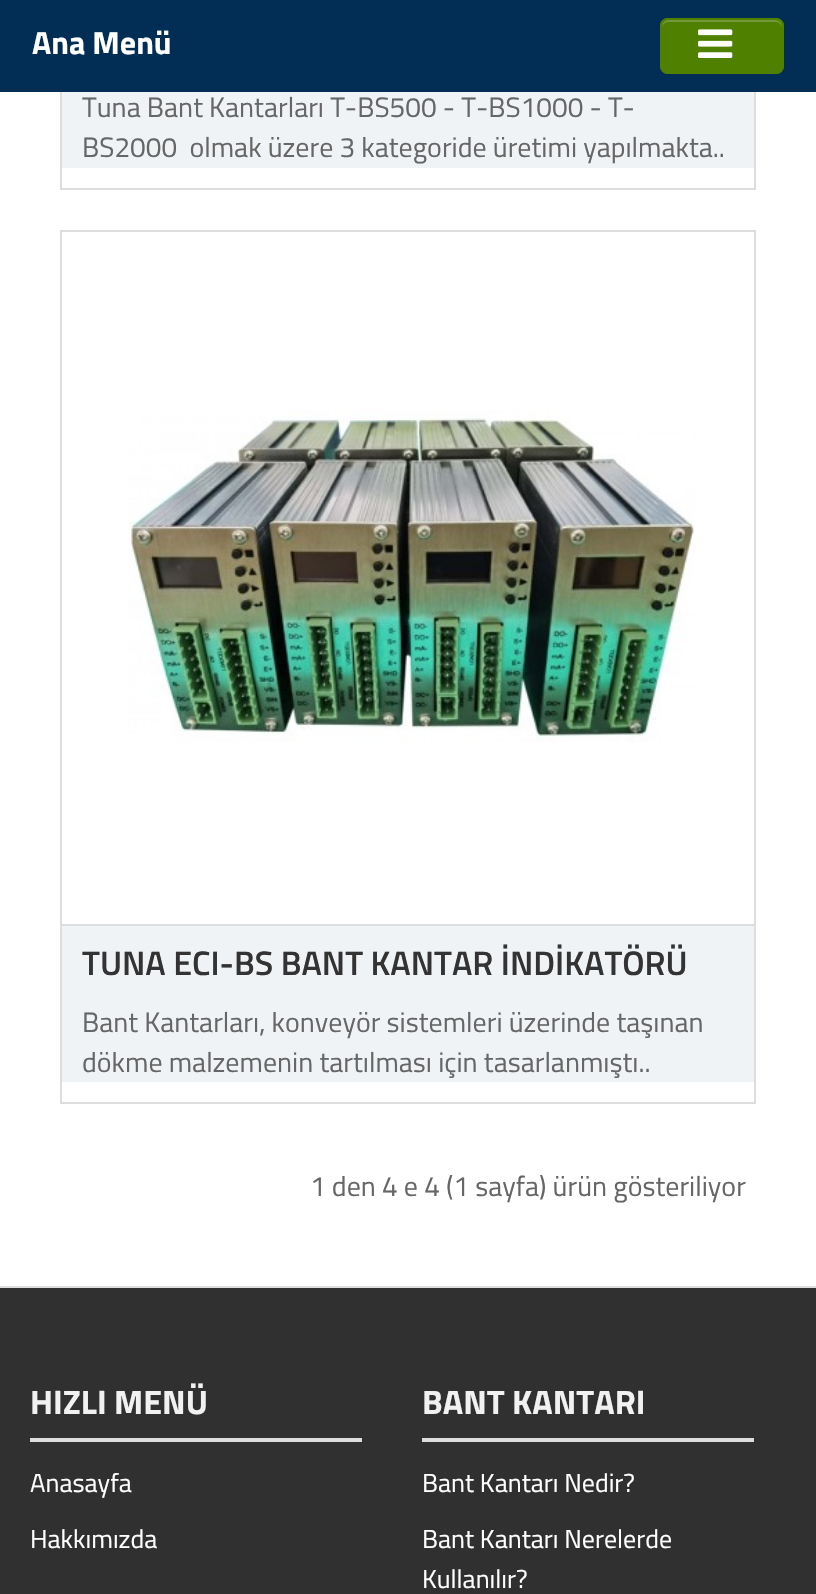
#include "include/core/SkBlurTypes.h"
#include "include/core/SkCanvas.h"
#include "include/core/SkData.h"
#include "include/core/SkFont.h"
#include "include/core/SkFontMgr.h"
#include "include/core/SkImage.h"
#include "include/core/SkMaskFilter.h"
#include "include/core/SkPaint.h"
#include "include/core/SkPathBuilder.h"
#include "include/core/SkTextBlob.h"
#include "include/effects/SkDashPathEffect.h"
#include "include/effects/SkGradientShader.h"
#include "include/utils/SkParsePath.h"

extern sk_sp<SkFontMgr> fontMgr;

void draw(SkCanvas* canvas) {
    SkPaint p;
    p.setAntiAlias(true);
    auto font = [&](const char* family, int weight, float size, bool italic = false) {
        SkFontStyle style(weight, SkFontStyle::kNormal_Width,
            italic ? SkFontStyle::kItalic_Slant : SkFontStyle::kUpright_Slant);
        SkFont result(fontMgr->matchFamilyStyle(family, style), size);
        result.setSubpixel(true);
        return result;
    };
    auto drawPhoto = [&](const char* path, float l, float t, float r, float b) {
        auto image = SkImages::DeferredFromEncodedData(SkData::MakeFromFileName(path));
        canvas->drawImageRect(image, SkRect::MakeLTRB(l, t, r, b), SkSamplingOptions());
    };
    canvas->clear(0xFFFFFFFF);
    p.setStyle(SkPaint::kStroke_Style);
    p.setStrokeWidth(2);
    p.setColor(0xFFDDDDDD);
    canvas->drawRect(SkRect::MakeLTRB(61, -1, 755, 189), p);
    p.setStyle(SkPaint::kFill_Style);
    p.setColor(0xFF022E56);
    canvas->drawRect(SkRect::MakeLTRB(0, 0, 816, 92), p);
    auto font1 = font("Titillium Web", 700, 32);
    p.setColor(0xFFFFFFFF);
    canvas->drawString("Ana Menü", 32, 54, font1, p);
    p.setColor(0xFF4F8000);
    canvas->drawRoundRect(SkRect::MakeLTRB(660, 18, 784, 74), 8, 8, p);
    p.setColor(0xFF729933);
    canvas->drawPath(SkPathBuilder().moveTo(668, 22).lineTo(776, 22).cubicTo(779, 22, 782, 25, 782, 28).lineTo(782, 26).cubicTo(782, 23, 779, 20, 776, 20).lineTo(668, 20).cubicTo(665, 20, 662, 23, 662, 26).lineTo(662, 28).cubicTo(662, 25, 665, 22, 668, 22).close().detach(), p);
    p.setStyle(SkPaint::kStroke_Style);
    p.setColor(0xFF4F8000);
    canvas->drawRoundRect(SkRect::MakeLTRB(661, 19, 783, 73), 7, 7, p);
    drawPhoto("media/1.png", 698, 29, 733, 58);
    p.setStyle(SkPaint::kFill_Style);
    p.setColor(0xFFF0F3F5);
    canvas->drawRect(SkRect::MakeLTRB(62, 92, 754, 168), p);
    auto font2 = font("Titillium Web", 400, 28);
    p.setColor(0xFF666666);
    canvas->drawString("Tuna Bant Kantarları T-BS500 - T-BS1000 - T-", 82, 117, font2, p);
    canvas->drawString("BS2000  olmak üzere 3 kategoride üretimi yapılmakta..", 82, 157, font2, p);
    p.setStyle(SkPaint::kStroke_Style);
    p.setColor(0xFFDDDDDD);
    canvas->drawRect(SkRect::MakeLTRB(61, 231, 755, 1103), p);
    drawPhoto("media/2.png", 128, 410, 696, 742);
    p.setStyle(SkPaint::kFill_Style);
    p.setColor(0xFFF0F3F5);
    canvas->drawRect(SkRect::MakeLTRB(62, 926, 754, 1082), p);
    p.setColor(0xFFDDDDDD);
    canvas->drawRect(SkRect::MakeLTRB(62, 924, 754, 926), p);
    auto font3 = font("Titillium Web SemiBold", 600, 34);
    p.setColor(0xFF333333);
    canvas->drawString("TUNA ECI-BS BANT KANTAR İNDİKATÖRÜ", 82, 975, font3, p);
    p.setColor(0xFF666666);
    {
        const struct { const char* s; float x, y; } items[] = {
            {"Bant Kantarları, konveyör sistemleri üzerinde taşınan", 82, 1032},
            {"dökme malzemenin tartılması için tasarlanmıştı..", 82, 1072},
            {"1 den 4 e 4 (1 sayfa) ürün gösteriliyor", 310, 1196},
        };
        for (auto [s, x, y] : items) {
            canvas->drawString(s, x, y, font2, p);
        }
    }
    {
        const struct { float l, t, r, b; SkColor color; } items[] = {
            {0, 1288, 816, 1594, 0xFF303030},
            {0, 1286, 816, 1288, 0xFFDDDDDD},
            {30, 1438, 362, 1442, 0xFFDDDDDD},
        };
        for (auto [l, t, r, b, color] : items) {
            p.setColor(color);
            canvas->drawRect(SkRect::MakeLTRB(l, t, r, b), p);
        }
    }
    auto font4 = font("Titillium Web", 700, 34);
    p.setColor(0xFFF1F1F1);
    canvas->drawString("HIZLI MENÜ", 30, 1414, font4, p);
    auto font5 = font("Titillium Web", 400, 26);
    p.setColor(0xFFFFFFFF);
    canvas->drawString("Anasayfa", 30, 1492, font5, p);
    canvas->drawString("Hakkımızda", 30, 1548, font5, p);
    p.setColor(0xFFDDDDDD);
    canvas->drawRect(SkRect::MakeLTRB(422, 1438, 754, 1442), p);
    p.setColor(0xFFF1F1F1);
    canvas->drawString("BANT KANTARI", 422, 1414, font4, p);
    p.setColor(0xFFFFFFFF);
    {
        const struct { const char* s; float x, y; } items[] = {
            {"Bant Kantarı Nedir?", 422, 1492},
            {"Bant Kantarı Nerelerde", 422, 1548},
            {"Kullanılır?", 422, 1588},
        };
        for (auto [s, x, y] : items) {
            canvas->drawString(s, x, y, font5, p);
        }
    }
}
